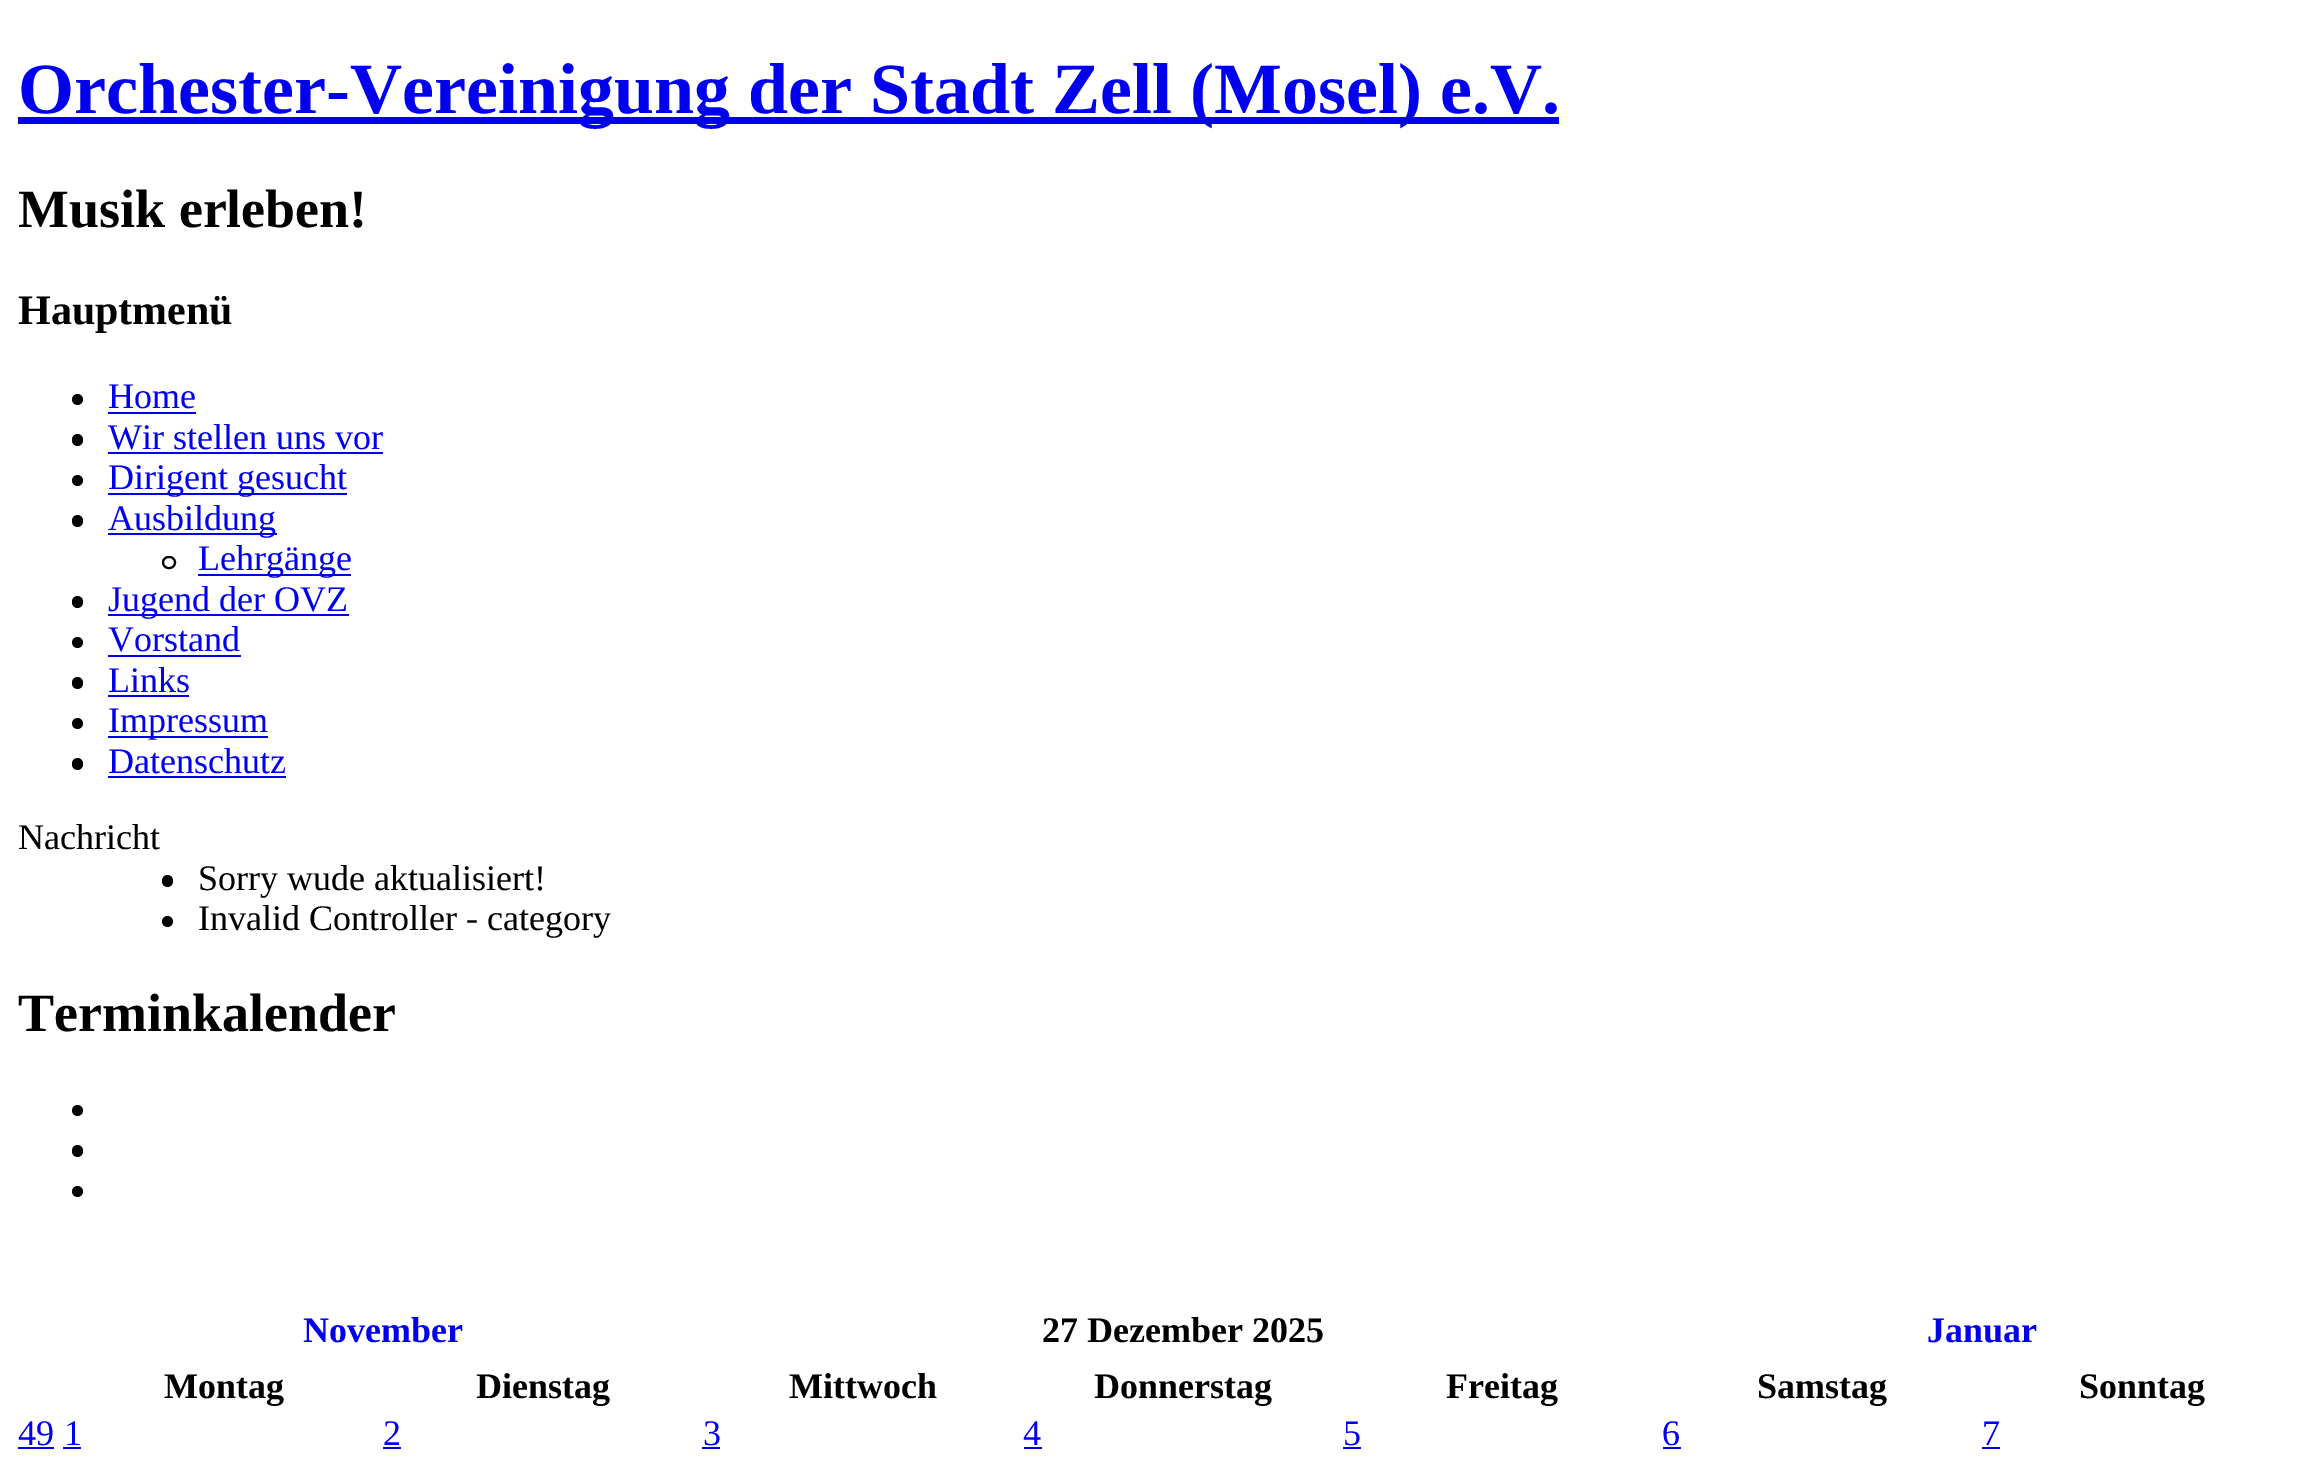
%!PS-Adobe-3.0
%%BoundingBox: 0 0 2319 1458
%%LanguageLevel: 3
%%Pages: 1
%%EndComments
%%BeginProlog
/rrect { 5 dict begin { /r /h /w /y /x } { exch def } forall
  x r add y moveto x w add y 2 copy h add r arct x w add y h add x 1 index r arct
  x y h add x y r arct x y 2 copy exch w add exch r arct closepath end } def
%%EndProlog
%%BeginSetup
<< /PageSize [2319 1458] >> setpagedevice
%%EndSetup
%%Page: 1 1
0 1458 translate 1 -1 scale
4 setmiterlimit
1 setgray
0 0 2319 1458 rectfill
0 0 0.933 setrgbcolor
18 117 1541 7 rectfill
0 setgray
newpath 77.5 399.5 5.5 0 360 arc closepath fill
0 0 0.933 setrgbcolor
108 412 88 2 rectfill
0 setgray
72 434 11 12 5.5 rrect fill
0 0 0.933 setrgbcolor
108 452 275 2 rectfill
0 setgray
newpath 77.5 480.5 5.5 0 360 arc closepath fill
0 0 0.933 setrgbcolor
108 493 239 2 rectfill
0 setgray
72 515 11 12 5.5 rrect fill
0 0 0.933 setrgbcolor
108 533 169 2 rectfill
0 setgray
2 setlinewidth
163 557 12 11 5.5 rrect stroke
0 0 0.933 setrgbcolor
198 574 153 2 rectfill
0 setgray
72 596 11 12 5.5 rrect fill
0 0 0.933 setrgbcolor
108 614 241 2 rectfill
0 setgray
newpath 77.5 642.5 5.5 0 360 arc closepath fill
0 0 0.933 setrgbcolor
108 655 133 2 rectfill
0 setgray
72 677 11 12 5.5 rrect fill
0 0 0.933 setrgbcolor
108 695 81 2 rectfill
0 setgray
newpath 77.5 723.5 5.5 0 360 arc closepath fill
0 0 0.933 setrgbcolor
108 736 160 2 rectfill
0 setgray
72 758 11 12 5.5 rrect fill
0 0 0.933 setrgbcolor
108 776 178 2 rectfill
0 setgray
162 875 11 12 5.5 rrect fill
newpath 167.5 921.5 5.5 0 360 arc closepath fill
newpath 77.5 1110.5 5.5 0 360 arc closepath fill
72 1145 11 12 5.5 rrect fill
newpath 77.5 1191.5 5.5 0 360 arc closepath fill
0 0 0.933 setrgbcolor
18 1447 36 2 rectfill
63 1447 18 2 rectfill
383 1447 18 2 rectfill
702 1447 18 2 rectfill
1024 1447 18 2 rectfill
1343 1447 18 2 rectfill
1663 1447 18 2 rectfill
1982 1447 18 2 rectfill
/LiberationSerif-Bold [72 0 0 -72 0 0] selectfont
18 113 moveto (Orchester-Vereinigung der Stadt Zell \(Mosel\) e.V.) show
/LiberationSerif-Bold [54 0 0 -54 0 0] selectfont
0 setgray
18 227 moveto (Musik erleben!) show
/LiberationSerif-Bold [42 0 0 -42 0 0] selectfont
18 324 moveto (Hauptmenü) show
/LiberationSerif-Regular [36 0 0 -36 0 0] selectfont
0 0 0.933 setrgbcolor
108 408 moveto (Home) show
108 449 moveto (Wir stellen uns vor) show
108 489 moveto (Dirigent gesucht) show
108 530 moveto (Ausbildung) show
198 570 moveto (Lehrgänge) show
108 611 moveto (Jugend der OVZ) show
108 651 moveto (Vorstand) show
108 692 moveto (Links) show
108 732 moveto (Impressum) show
108 773 moveto (Datenschutz) show
0 setgray
18 849 moveto (Nachricht) show
198 890 moveto (Sorry wude aktualisiert!) show
198 930 moveto (Invalid Controller - category) show
/LiberationSerif-Bold [54 0 0 -54 0 0] selectfont
18 1031 moveto (Terminkalender) show
/LiberationSerif-Bold [36 0 0 -36 0 0] selectfont
0 0 0.933 setrgbcolor
303 1342 moveto (November) show
0 setgray
1042 1342 moveto (27 Dezember 2025) show
0 0 0.933 setrgbcolor
1927 1342 moveto (Januar) show
0 setgray
164 1398 moveto (Montag) show
476 1398 moveto (Dienstag) show
789 1398 moveto (Mittwoch) show
1094 1398 moveto (Donnerstag) show
1446 1398 moveto (Freitag) show
1757 1398 moveto (Samstag) show
2079 1398 moveto (Sonntag) show
/LiberationSerif-Regular [36 0 0 -36 0 0] selectfont
0 0 0.933 setrgbcolor
18 1445 moveto (49) show
64 1445 moveto (1) show
383 1445 moveto (2) show
703 1445 moveto (3) show
1023 1445 moveto (4) show
1343 1445 moveto (5) show
1662 1445 moveto (6) show
1982 1445 moveto (7) show
showpage
%%EOF
